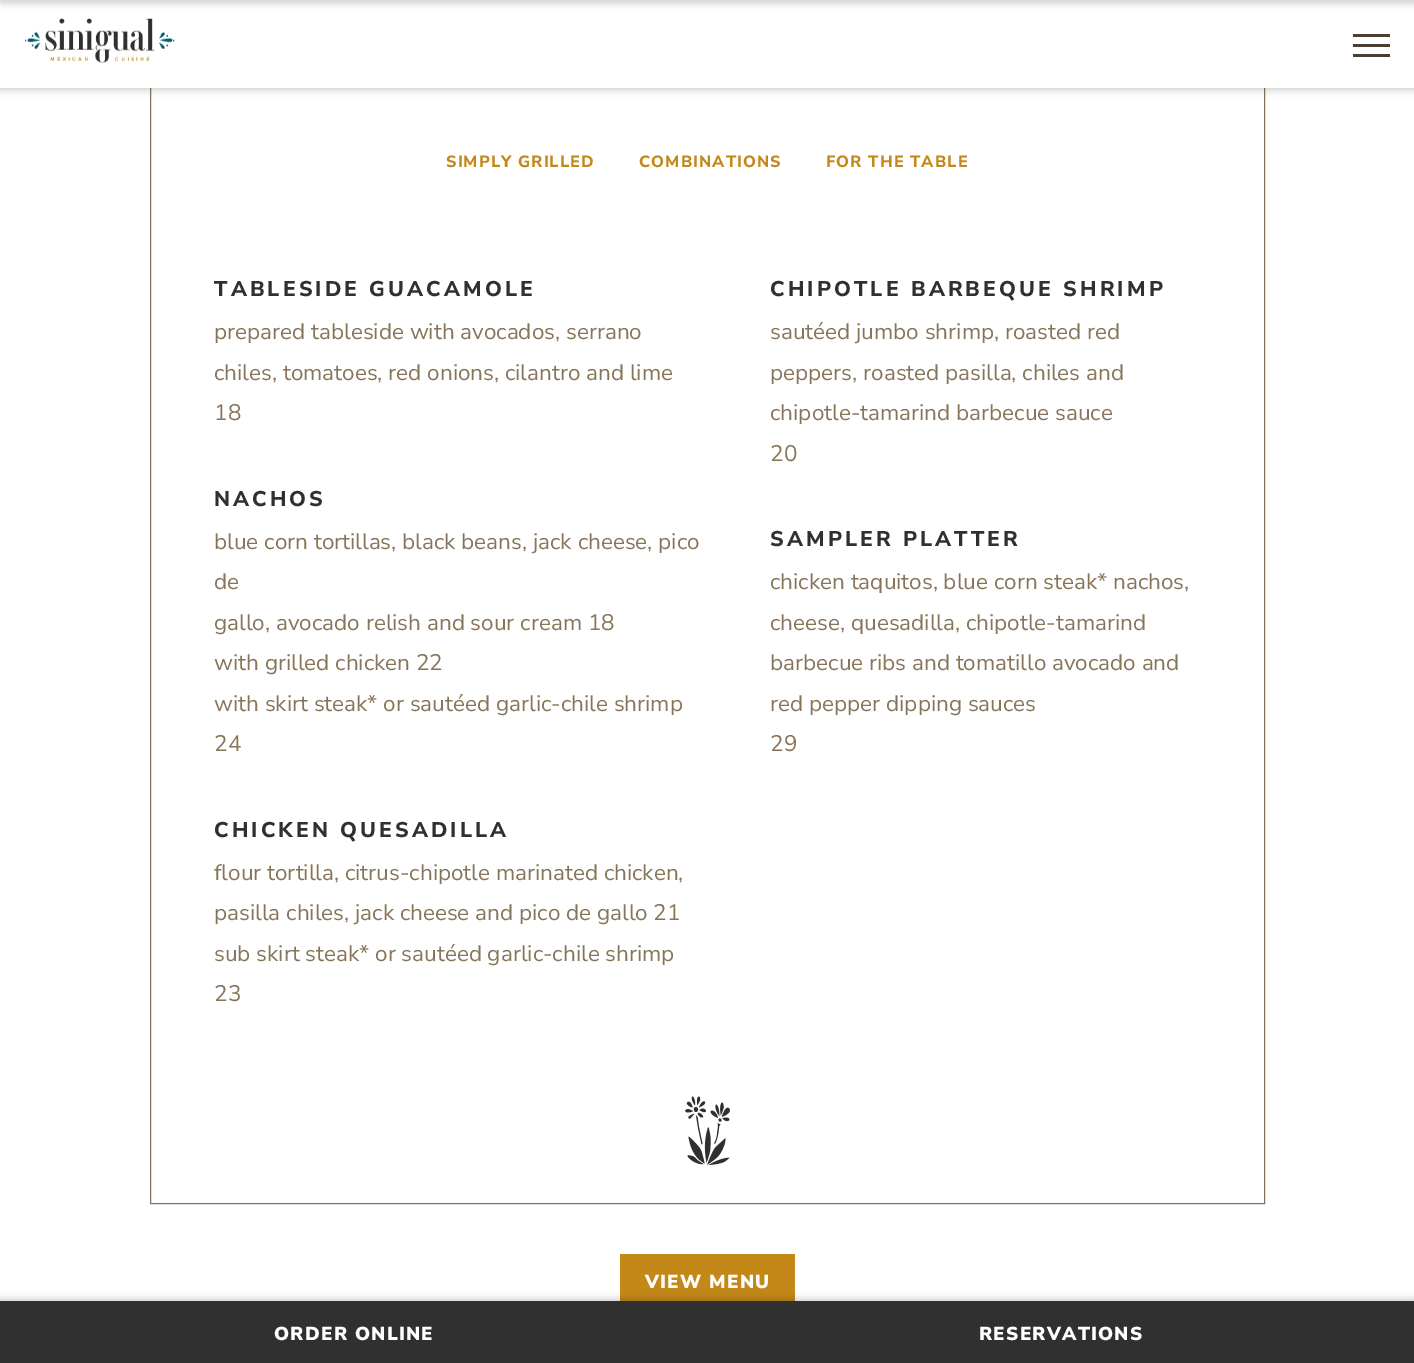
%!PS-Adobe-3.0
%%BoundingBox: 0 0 1414 1363
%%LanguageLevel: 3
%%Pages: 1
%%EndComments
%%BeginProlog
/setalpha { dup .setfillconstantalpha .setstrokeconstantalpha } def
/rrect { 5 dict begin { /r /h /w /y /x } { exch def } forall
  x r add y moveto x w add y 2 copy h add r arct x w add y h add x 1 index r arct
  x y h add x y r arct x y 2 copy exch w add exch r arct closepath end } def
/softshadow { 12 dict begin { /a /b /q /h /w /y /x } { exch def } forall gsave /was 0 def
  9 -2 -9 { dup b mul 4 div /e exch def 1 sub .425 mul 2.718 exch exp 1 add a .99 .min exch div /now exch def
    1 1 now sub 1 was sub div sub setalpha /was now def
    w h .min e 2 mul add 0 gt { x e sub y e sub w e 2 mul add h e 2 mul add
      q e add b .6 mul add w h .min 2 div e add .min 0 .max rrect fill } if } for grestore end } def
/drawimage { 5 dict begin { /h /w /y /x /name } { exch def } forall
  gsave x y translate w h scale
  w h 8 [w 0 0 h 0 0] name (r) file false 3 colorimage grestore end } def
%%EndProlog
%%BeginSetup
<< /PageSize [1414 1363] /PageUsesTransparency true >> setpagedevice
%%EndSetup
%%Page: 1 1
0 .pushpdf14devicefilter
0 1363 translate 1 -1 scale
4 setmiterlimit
1 setgray
0 0 1414 1363 rectfill
0.529 0.459 0.353 setrgbcolor
150.5 -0.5 1114 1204 rectstroke
0 setgray
0 3 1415 87 0 4 0.2 softshadow
1 setgray
0 0 1414 88 rectfill
(images/1.raw) 25 18 150 45 drawimage
0.298 0.243 0.192 setrgbcolor
1353 34 37 3 rectfill
1353 44 37 3 rectfill
1353 54 37 3 rectfill
0 setgray
0 -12 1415 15 0 4 0.2 softshadow
(images/2.raw) 685 1096 45 69 drawimage
0.769 0.533 0.094 setrgbcolor
620 1254 175 47 rectfill
0 setgray
0 1299 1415 62 0 4 0.2 softshadow
0.192 0.188 0.192 setrgbcolor
0 1301 1414 62 rectfill
/NunitoSans-ExtraBold [16.25 0 0 -16.25 0 0] selectfont
0.769 0.533 0.094 setrgbcolor
446 167 moveto 1.1 0 (SIMPLY GRILLED) ashow
639 167 moveto 1.1 0 (COMBINATIONS) ashow
826 167 moveto 1.1 0 (FOR THE TABLE) ashow
/NunitoSans-ExtraBold [21.25 0 0 -21.25 0 0] selectfont
0.192 0.188 0.192 setrgbcolor
214 296 moveto 3.1 0 (TABLESIDE GUACAMOLE) ashow
/NunitoSans-Regular [22.5 0 0 -22.5 0 0] selectfont
0.529 0.459 0.353 setrgbcolor
214 339 moveto (prepared tableside with avocados, serrano) show
214 380 moveto (chiles, tomatoes, red onions, cilantro and lime) show
214 420 moveto (18) show
/NunitoSans-ExtraBold [21.25 0 0 -21.25 0 0] selectfont
0.192 0.188 0.192 setrgbcolor
214 506 moveto 3.1 0 (NACHOS) ashow
/NunitoSans-Regular [22.5 0 0 -22.5 0 0] selectfont
0.529 0.459 0.353 setrgbcolor
214 549 moveto (blue corn tortillas, black beans, jack cheese, pico) show
214 589 moveto (de) show
214 630 moveto (gallo, avocado relish and sour cream 18) show
214 670 moveto (with grilled chicken 22) show
214 711 moveto (with skirt steak* or sautéed garlic-chile shrimp) show
214 751 moveto (24) show
/NunitoSans-ExtraBold [21.25 0 0 -21.25 0 0] selectfont
0.192 0.188 0.192 setrgbcolor
214 837 moveto 3.1 0 (CHICKEN QUESADILLA) ashow
/NunitoSans-Regular [22.5 0 0 -22.5 0 0] selectfont
0.529 0.459 0.353 setrgbcolor
214 880 moveto (flour tortilla, citrus-chipotle marinated chicken,) show
214 920 moveto (pasilla chiles, jack cheese and pico de gallo 21) show
214 961 moveto (sub skirt steak* or sautéed garlic-chile shrimp) show
214 1001 moveto (23) show
/NunitoSans-ExtraBold [21.25 0 0 -21.25 0 0] selectfont
0.192 0.188 0.192 setrgbcolor
770 296 moveto 3.1 0 (CHIPOTLE BARBEQUE SHRIMP) ashow
/NunitoSans-Regular [22.5 0 0 -22.5 0 0] selectfont
0.529 0.459 0.353 setrgbcolor
770 339 moveto (sautéed jumbo shrimp, roasted red) show
770 380 moveto (peppers, roasted pasilla, chiles and) show
770 420 moveto (chipotle-tamarind barbecue sauce) show
770 461 moveto (20) show
/NunitoSans-ExtraBold [21.25 0 0 -21.25 0 0] selectfont
0.192 0.188 0.192 setrgbcolor
770 546 moveto 3.1 0 (SAMPLER PLATTER) ashow
/NunitoSans-Regular [22.5 0 0 -22.5 0 0] selectfont
0.529 0.459 0.353 setrgbcolor
770 589 moveto (chicken taquitos, blue corn steak* nachos,) show
770 630 moveto (cheese, quesadilla, chipotle-tamarind) show
770 670 moveto (barbecue ribs and tomatillo avocado and) show
770 711 moveto (red pepper dipping sauces) show
770 751 moveto (29) show
/NunitoSans-Black [18.75 0 0 -18.75 0 0] selectfont
1 setgray
645 1288 moveto 1.25 0 (VIEW MENU) ashow
274 1340 moveto 1.25 0 (ORDER ONLINE) ashow
979 1340 moveto 1.25 0 (RESERVATIONS) ashow
.poppdf14devicefilter showpage
%%EOF
